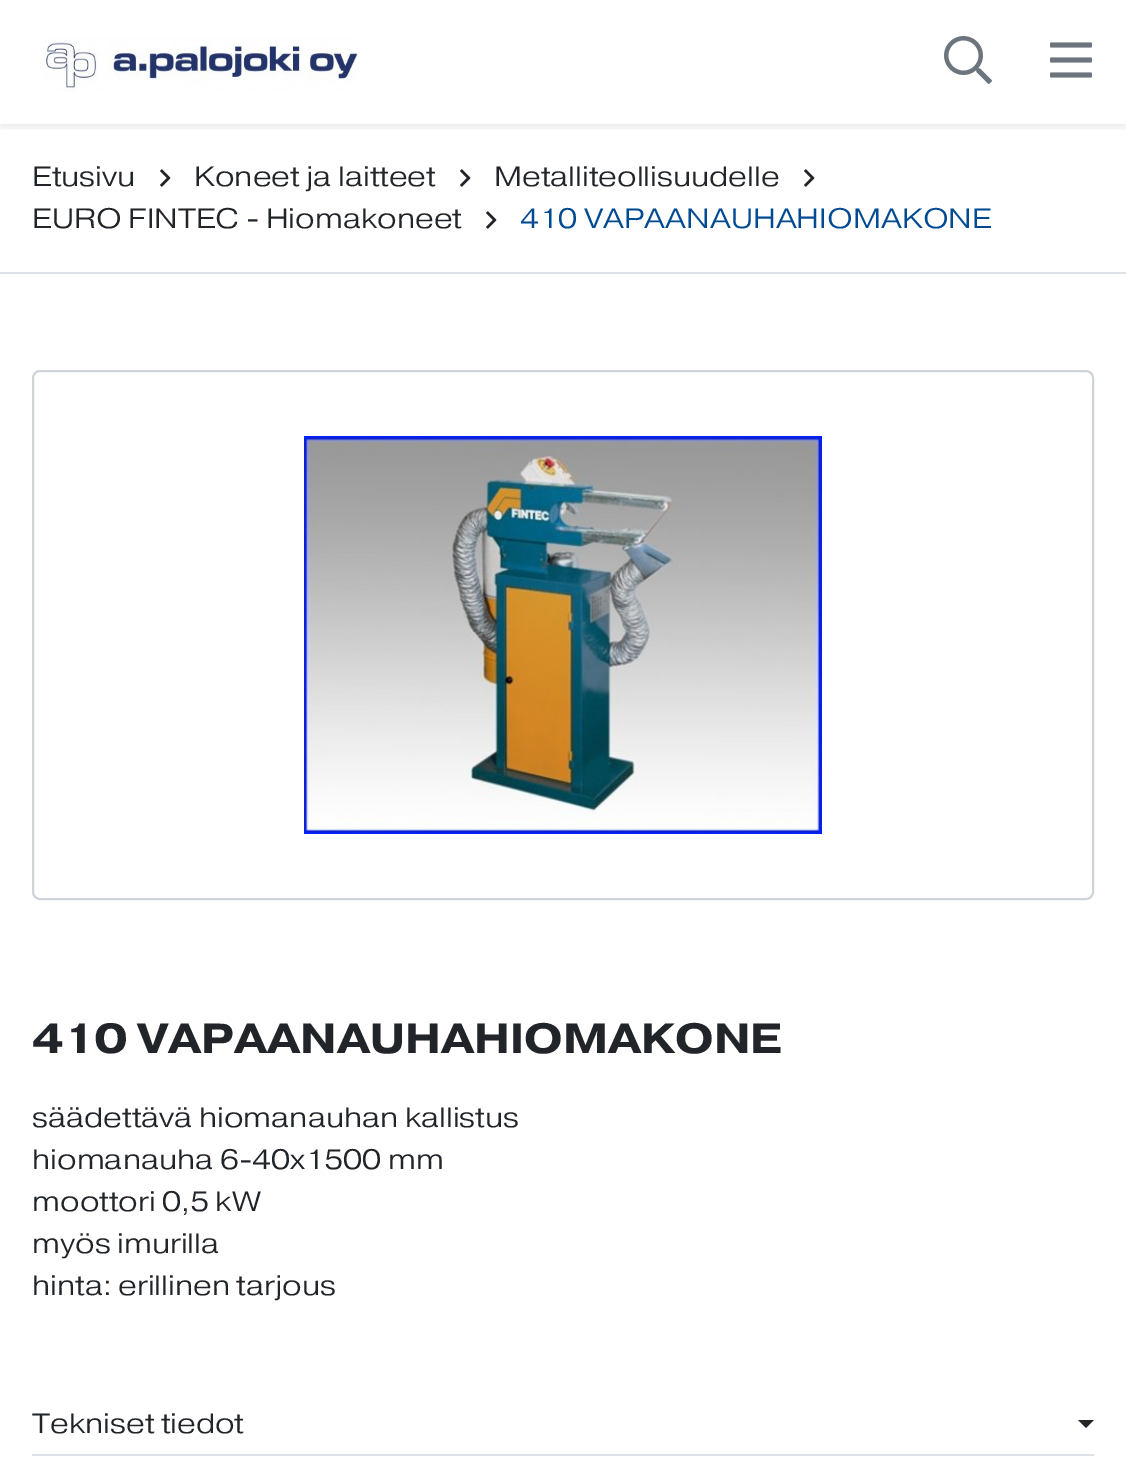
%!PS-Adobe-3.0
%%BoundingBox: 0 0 1126 1461
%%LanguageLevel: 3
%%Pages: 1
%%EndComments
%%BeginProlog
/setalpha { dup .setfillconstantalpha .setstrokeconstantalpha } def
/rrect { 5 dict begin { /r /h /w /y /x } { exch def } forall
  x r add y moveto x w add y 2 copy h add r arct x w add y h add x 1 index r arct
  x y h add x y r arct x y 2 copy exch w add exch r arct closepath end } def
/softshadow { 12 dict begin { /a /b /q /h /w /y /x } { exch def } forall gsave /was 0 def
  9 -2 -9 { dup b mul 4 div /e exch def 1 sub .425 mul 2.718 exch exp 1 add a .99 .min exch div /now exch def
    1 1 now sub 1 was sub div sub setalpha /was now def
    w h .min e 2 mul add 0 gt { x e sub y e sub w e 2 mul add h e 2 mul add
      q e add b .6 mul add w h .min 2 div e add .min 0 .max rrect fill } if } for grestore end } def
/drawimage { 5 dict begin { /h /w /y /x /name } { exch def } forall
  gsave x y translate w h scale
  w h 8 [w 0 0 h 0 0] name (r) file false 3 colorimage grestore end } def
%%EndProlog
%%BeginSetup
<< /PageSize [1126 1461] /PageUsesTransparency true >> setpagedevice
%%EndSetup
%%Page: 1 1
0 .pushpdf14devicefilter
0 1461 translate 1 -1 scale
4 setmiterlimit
1 setgray
0 0 1126 1461 rectfill
gsave
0 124 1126 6 rectclip
0 setgray
0 4 1126 124 0 4 0.07 softshadow
grestore
(images/1.raw) 43 37 316 55 drawimage
(images/2.raw) 944 36 48 48 drawimage
(images/3.raw) 1050 42 42 36 drawimage
0.871 0.886 0.902 setrgbcolor
0 272 1126 2 rectfill
(images/4.raw) 160 169 11 18 drawimage
(images/4.raw) 460 169 11 18 drawimage
(images/4.raw) 804 169 11 18 drawimage
(images/4.raw) 486 211 11 18 drawimage
0.808 0.831 0.855 setrgbcolor
2 setlinewidth
33 371 1060 528 7 rrect stroke
(images/5.raw) 304 436 518 398 drawimage
0.871 0.886 0.902 setrgbcolor
32 1454 1062 2 rectfill
0.129 0.145 0.161 setrgbcolor
newpath 1078 1420 moveto 1094 1420 lineto 1086 1428 lineto closepath fill
/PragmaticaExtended-Light [28 0 0 -28 0 0] selectfont
32 186 moveto (Etusivu) show
194 186 moveto (Koneet ja laitteet) show
494 186 moveto (Metalliteollisuudelle) show
32 228 moveto (EURO FINTEC - Hiomakoneet) show
0 0.29 0.573 setrgbcolor
520 228 moveto (410 VAPAANAUHAHIOMAKONE) show
/PragmaticaExtended-Bold [42 0 0 -42 0 0] selectfont
0.129 0.145 0.161 setrgbcolor
32 1053 moveto (410 VAPAANAUHAHIOMAKONE) show
/PragmaticaExtended-Light [28 0 0 -28 0 0] selectfont
32 1127 moveto (säädettävä hiomanauhan kallistus) show
32 1169 moveto (hiomanauha 6-40x1500 mm) show
32 1211 moveto (moottori 0,5 kW) show
32 1253 moveto (myös imurilla) show
32 1295 moveto (hinta: erillinen tarjous) show
32 1433 moveto (Tekniset tiedot) show
.poppdf14devicefilter showpage
%%EOF
